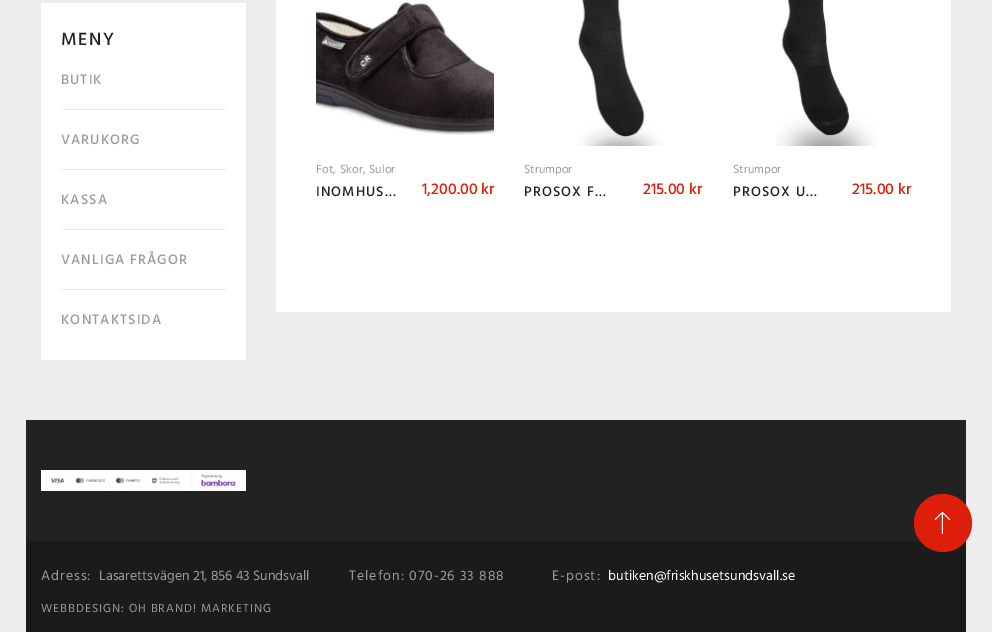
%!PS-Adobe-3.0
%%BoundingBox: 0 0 992 632
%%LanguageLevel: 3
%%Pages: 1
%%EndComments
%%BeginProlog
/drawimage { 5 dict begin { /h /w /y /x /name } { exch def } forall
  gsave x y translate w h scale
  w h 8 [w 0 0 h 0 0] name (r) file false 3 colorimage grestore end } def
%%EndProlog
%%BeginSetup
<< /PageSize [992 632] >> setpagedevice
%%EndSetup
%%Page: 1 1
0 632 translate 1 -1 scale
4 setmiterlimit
0.929 setgray
0 0 992 632 rectfill
1 setgray
41 3 205 357 rectfill
0.91 setgray
61 109 165 1 rectfill
61 169 165 1 rectfill
61 229 165 1 rectfill
61 289 165 1 rectfill
1 setgray
276 0 675 312 rectfill
(images/1.raw) 316 1 178 134 drawimage
(images/2.raw) 577 0 86 146 drawimage
(images/3.raw) 776 0 100 146 drawimage
0.106 setgray
26 541 940 91 rectfill
0.133 setgray
26 420 940 121 rectfill
(images/4.raw) 41 470 205 21 drawimage
0.867 0.118 0.031 setrgbcolor
newpath 943 523 29 0 360 arc closepath fill
(images/5.raw) 934 511 17 23 drawimage
/HindSiliguri-Medium [18 0 0 -18 0 0] selectfont
0.133 setgray
61 45 moveto 1.5 0 (MENY) ashow
/HindSiliguri-Medium [14 0 0 -14 0 0] selectfont
0.608 setgray
61 84 moveto 1.1 0 (BUTIK) ashow
61 144 moveto 1.1 0 (VARUKORG) ashow
61 204 moveto 1.1 0 (KASSA) ashow
61 264 moveto 1.1 0 (VANLIGA FRÅGOR) ashow
61 324 moveto 1.1 0 (KONTAKTSIDA) ashow
/HindSiliguri-Regular [12 0 0 -12 0 0] selectfont
316 173 moveto (Fot,) show
340 173 moveto (Skor,) show
369 173 moveto (Sulor) show
/HindSiliguri-Medium [14 0 0 -14 0 0] selectfont
0.133 setgray
316 196 moveto 1.1 0 (INOMHUS…) ashow
/HindSiliguri-Medium [16 0 0 -16 0 0] selectfont
0.867 0.118 0.031 setrgbcolor
422 194 moveto (1,200.00 kr) show
/HindSiliguri-Regular [12 0 0 -12 0 0] selectfont
0.608 setgray
524 173 moveto (Strumpor) show
/HindSiliguri-Medium [14 0 0 -14 0 0] selectfont
0.133 setgray
524 196 moveto 1.1 0 (PROSOX F…) ashow
/HindSiliguri-Medium [16 0 0 -16 0 0] selectfont
0.867 0.118 0.031 setrgbcolor
643 194 moveto (215.00 kr) show
/HindSiliguri-Regular [12 0 0 -12 0 0] selectfont
0.608 setgray
733 173 moveto (Strumpor) show
/HindSiliguri-Medium [14 0 0 -14 0 0] selectfont
0.133 setgray
733 196 moveto 1.1 0 (PROSOX U…) ashow
/HindSiliguri-Medium [16 0 0 -16 0 0] selectfont
0.867 0.118 0.031 setrgbcolor
852 194 moveto (215.00 kr) show
/HindSiliguri-Regular [14 0 0 -14 0 0] selectfont
0.608 setgray
41 580 moveto 1 0 (Adress:) ashow
99 580 moveto (Lasarettsvägen 21, 856 43 Sundsvall) show
349 580 moveto 1 0 (Telefon: 070-26 33 888) ashow
552 580 moveto 1 0 (E-post:) ashow
1 setgray
608 580 moveto (butiken@friskhusetsundsvall.se) show
/HindSiliguri-Regular [12 0 0 -12 0 0] selectfont
0.608 setgray
41 612 moveto 1 0 (WEBBDESIGN: OH BRAND! MARKETING) ashow
showpage
%%EOF
